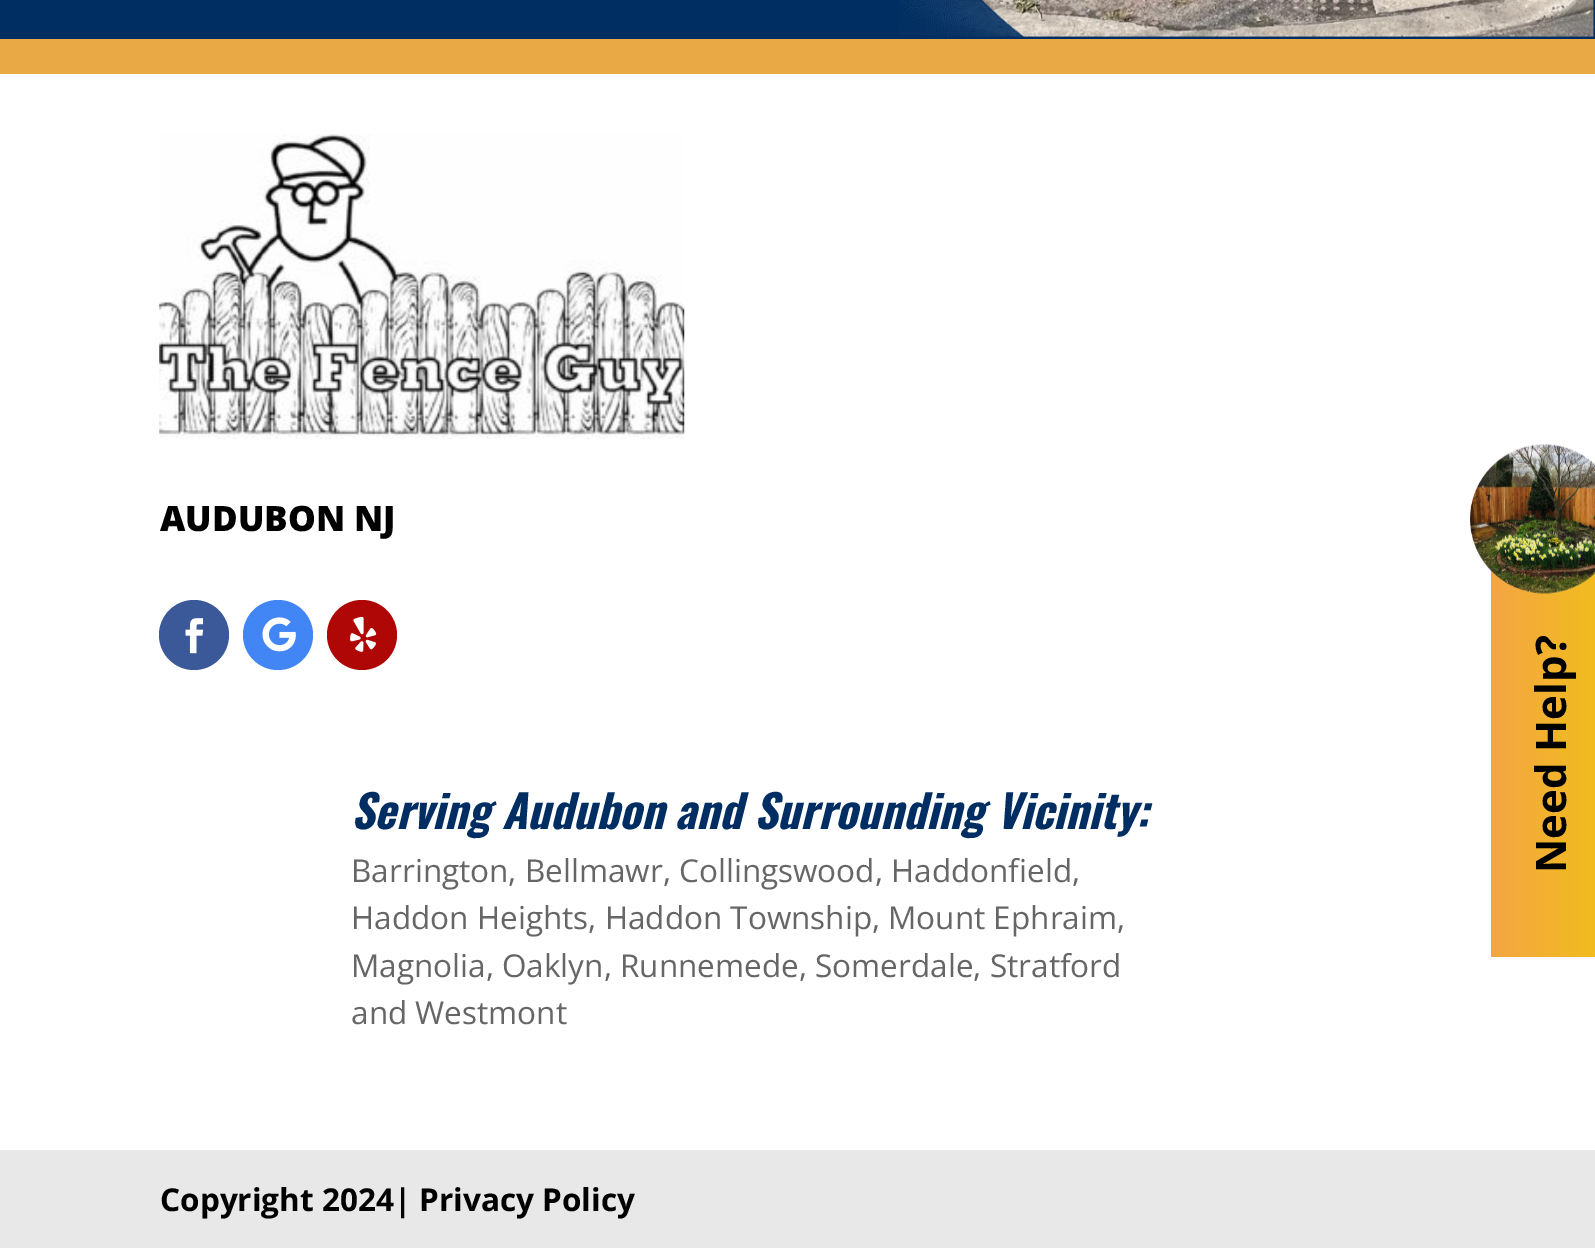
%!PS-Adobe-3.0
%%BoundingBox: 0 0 1595 1248
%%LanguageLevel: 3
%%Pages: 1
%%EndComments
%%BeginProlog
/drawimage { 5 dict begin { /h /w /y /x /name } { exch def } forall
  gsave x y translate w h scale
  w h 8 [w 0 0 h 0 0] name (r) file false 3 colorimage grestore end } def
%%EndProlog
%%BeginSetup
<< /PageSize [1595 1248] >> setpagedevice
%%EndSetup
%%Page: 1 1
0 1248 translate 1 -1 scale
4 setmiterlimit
1 setgray
0 0 1595 1248 rectfill
0 0.18 0.384 setrgbcolor
0 0 1595 39 rectfill
(images/1.raw) 899 0 695 37 drawimage
0.914 0.667 0.275 setrgbcolor
0 39 1595 35 rectfill
(images/2.raw) 159 134 526 305 drawimage
0.231 0.349 0.596 setrgbcolor
newpath 194 635 35 0 360 arc closepath fill
(images/3.raw) 185 618 19 36 drawimage
0.259 0.522 0.957 setrgbcolor
newpath 278 635 35 0 360 arc closepath fill
(images/4.raw) 262 617 34 35 drawimage
0.686 0.024 0.024 setrgbcolor
newpath 362 635 35 0 360 arc closepath fill
(images/5.raw) 350 616 27 36 drawimage
gsave newpath 1491 569 moveto 1595 569 lineto 1595 957 lineto 1491 957 lineto closepath clip newpath
<< /ShadingType 2 /ColorSpace /DeviceRGB /Coords [1491 729 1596 729] /Extend [true true] /Function << /FunctionType 2 /Domain [0 1] /C0 [0.957 0.647 0.267] /C1 [0.945 0.737 0.118] /N 1 >> >> shfill grestore
(images/6.raw) 1470 443 125 151 drawimage
0.91 setgray
0 1150 1595 98 rectfill
/OpenSans-ExtraBold [35 0 0 -35 0 0] selectfont
0 setgray
160 531 moveto (AUDUBON NJ) show
/Oswald-BoldItalic [45.5 0 0 -45.5 0 0] selectfont
0 0.18 0.384 setrgbcolor
351 829 moveto (Serving Audubon and Surrounding Vicinity:) show
/OpenSans-Regular [31.5 0 0 -31.5 0 0] selectfont
0.4 setgray
351 882 moveto (Barrington, Bellmawr, Collingswood, Haddonfield,) show
351 929 moveto (Haddon Heights, Haddon Township, Mount Ephraim,) show
351 977 moveto (Magnolia, Oaklyn, Runnemede, Somerdale, Stratford) show
351 1024 moveto (and Westmont) show
/OpenSans-Bold [42 0 0 -42 0 0] selectfont
0 setgray
gsave 1566 873 translate -90 rotate 0 0 moveto (Need Help?) show grestore
/OpenSans-Bold [31.5 0 0 -31.5 0 0] selectfont
160 1211 moveto (Copyright 2024| Privacy Policy) show
showpage
%%EOF
